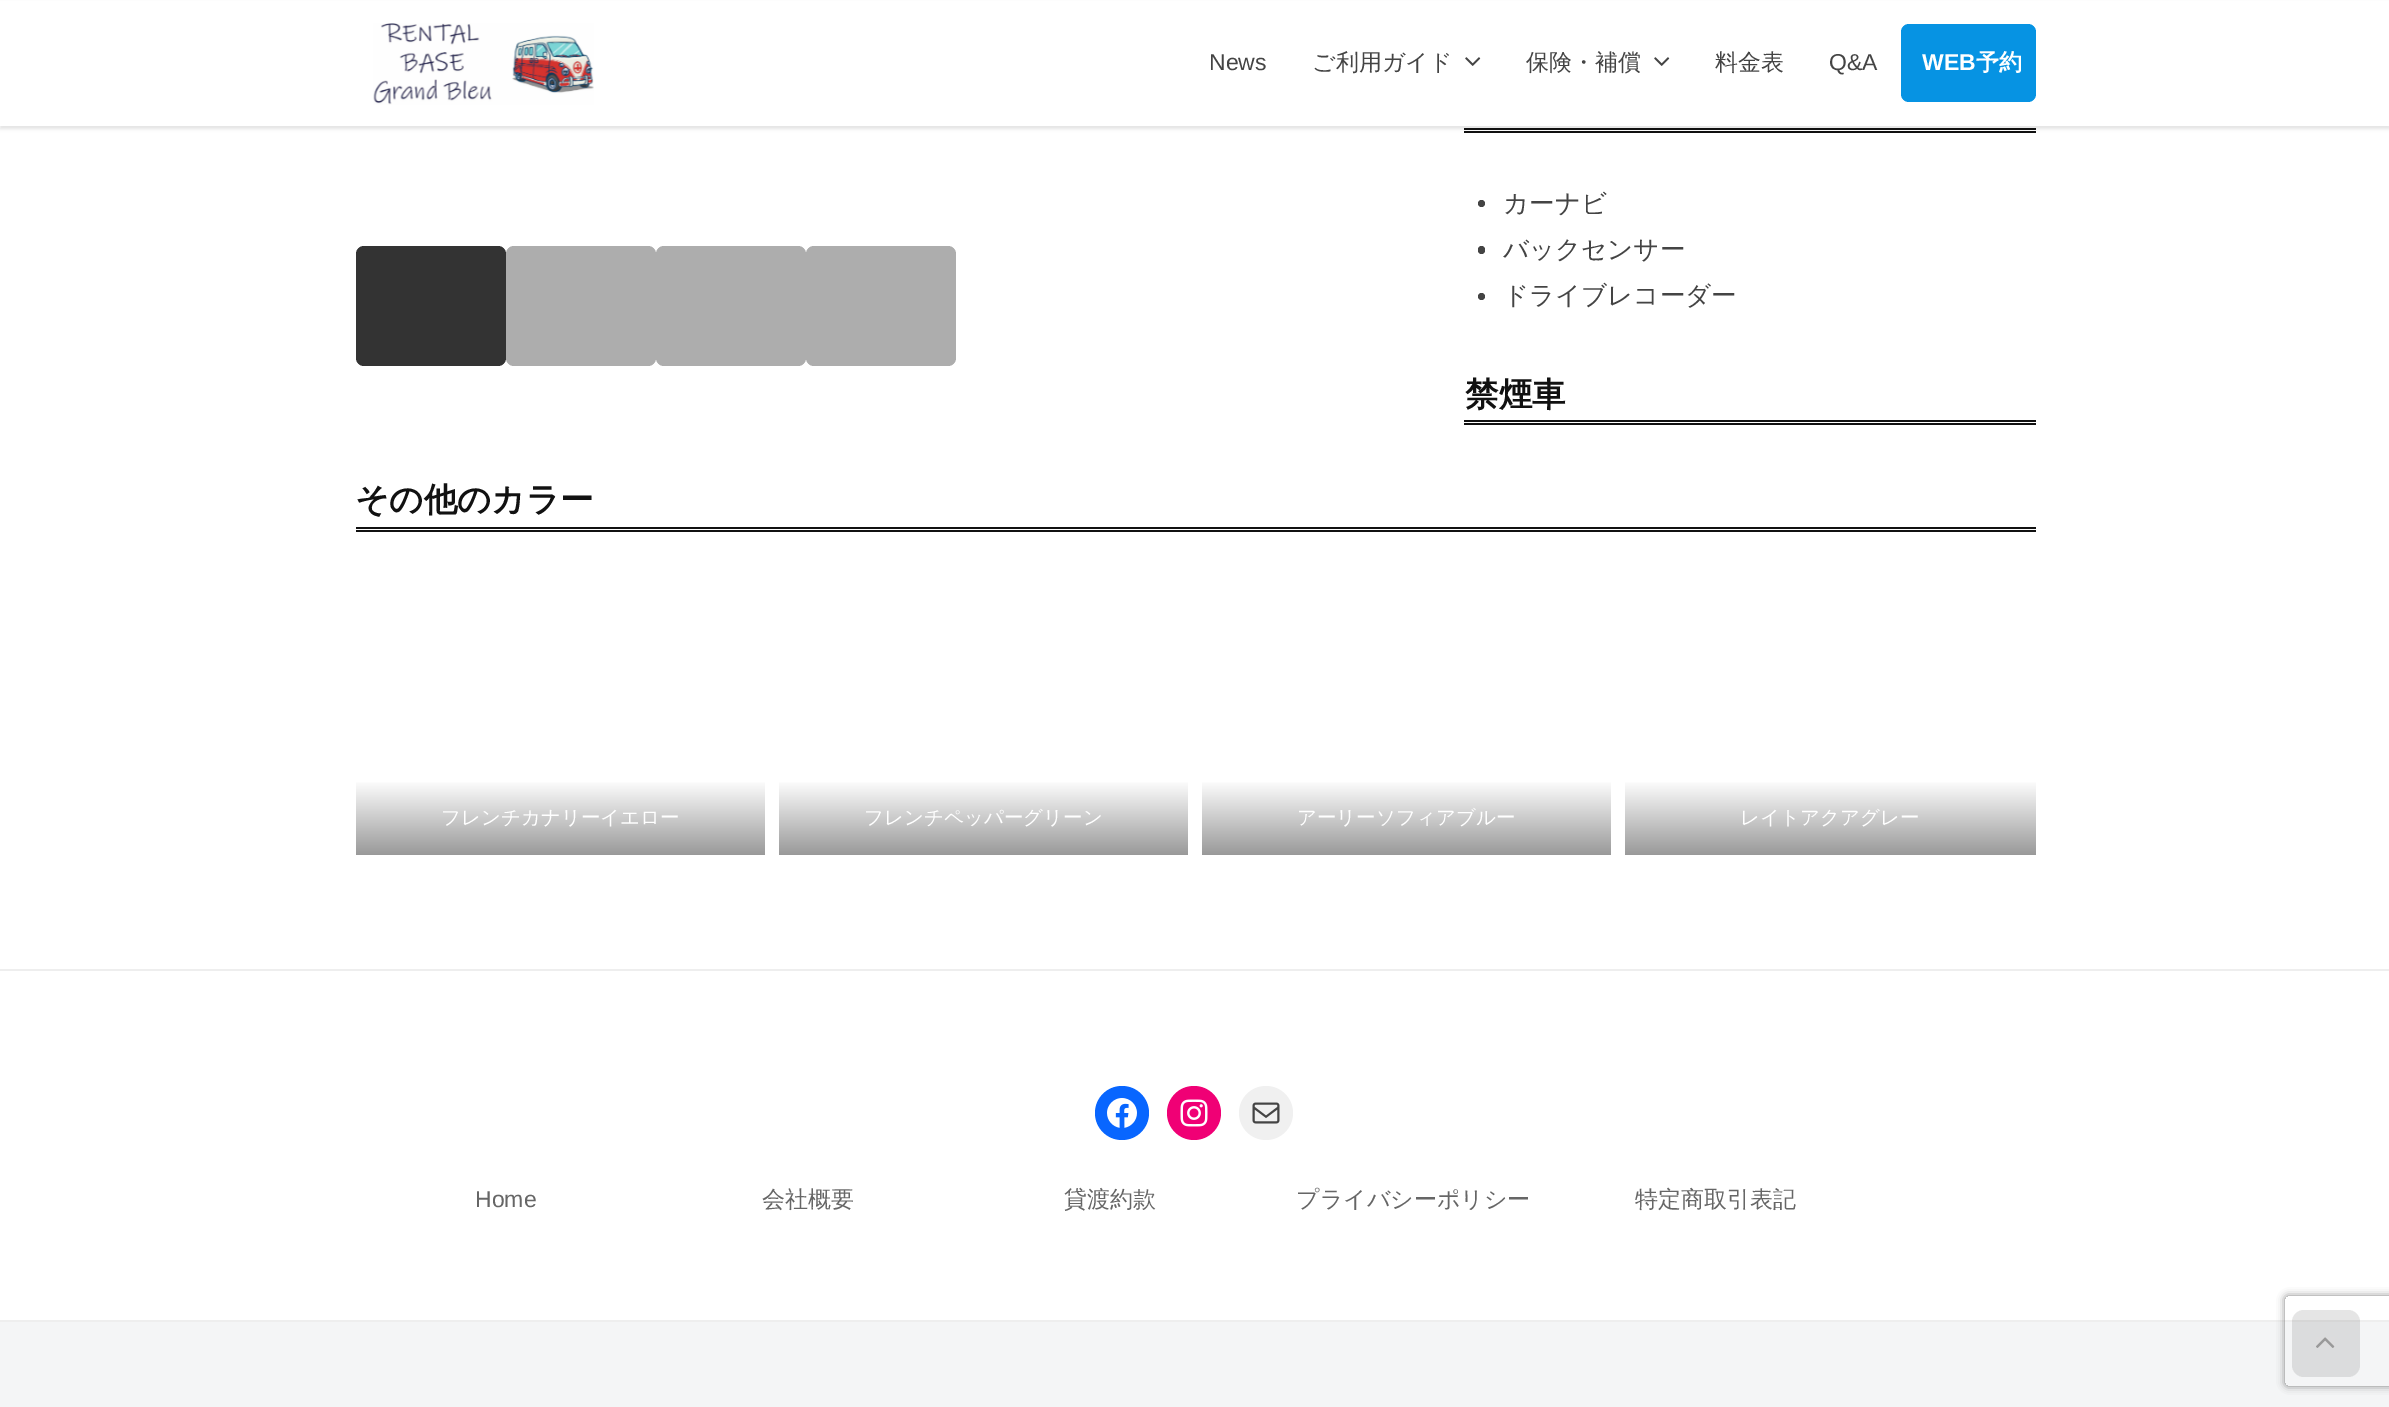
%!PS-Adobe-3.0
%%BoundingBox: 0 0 2389 1407
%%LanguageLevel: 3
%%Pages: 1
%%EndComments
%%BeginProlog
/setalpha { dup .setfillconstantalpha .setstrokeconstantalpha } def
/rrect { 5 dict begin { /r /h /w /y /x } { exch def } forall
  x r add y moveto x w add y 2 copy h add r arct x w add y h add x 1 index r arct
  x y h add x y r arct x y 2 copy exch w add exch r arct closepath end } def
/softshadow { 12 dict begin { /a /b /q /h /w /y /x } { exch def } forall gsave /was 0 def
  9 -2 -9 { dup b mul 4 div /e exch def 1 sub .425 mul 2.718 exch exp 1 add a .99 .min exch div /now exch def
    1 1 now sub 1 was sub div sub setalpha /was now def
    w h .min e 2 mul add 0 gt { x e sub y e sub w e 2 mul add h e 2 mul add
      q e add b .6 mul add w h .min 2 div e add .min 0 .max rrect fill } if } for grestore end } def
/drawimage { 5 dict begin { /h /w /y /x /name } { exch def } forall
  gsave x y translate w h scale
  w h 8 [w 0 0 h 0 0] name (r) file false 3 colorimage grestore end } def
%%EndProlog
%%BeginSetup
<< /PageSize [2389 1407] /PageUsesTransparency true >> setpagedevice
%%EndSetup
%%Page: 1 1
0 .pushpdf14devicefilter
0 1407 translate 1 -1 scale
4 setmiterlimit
1 setgray
0 0 2389 1407 rectfill
0.067 setgray
1464 128 572 2 rectfill
1464 131 572 2 rectfill
0 setgray
0 3 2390 126 0 1.5 0.1 softshadow
1 setgray
0 1 2389 125 rectfill
(images/1.raw) 373 23 221 82 drawimage
(images/2.raw) 1465 57 16 9 drawimage
(images/2.raw) 1654 57 16 9 drawimage
0.024 0.576 0.89 setrgbcolor
1901 24 135 78 8 rrect fill
0.2 setgray
356 246 150 120 8 rrect fill
0.678 setgray
506 246 150 120 8 rrect fill
656 246 150 120 8 rrect fill
806 246 150 120 8 rrect fill
0.267 setgray
newpath 1481.5 203.5 3.5 0 360 arc closepath fill
1478 246 7 8 3.5 rrect fill
newpath 1481.5 296.5 3.5 0 360 arc closepath fill
0.067 setgray
1464 420 572 2 rectfill
1464 423 572 2 rectfill
356 527 1680 2 rectfill
356 530 1680 2 rectfill
gsave newpath 356 782 moveto 765 782 lineto 765 855 lineto 356 855 lineto closepath clip newpath
<< /ShadingType 2 /ColorSpace /DeviceRGB /Coords [560 855 560 780] /Extend [true true] /Function << /FunctionType 2 /Domain [0 1] /C0 [0.6 0.6 0.6] /C1 [1 1 1] /N 1 >> >> shfill grestore
gsave newpath 779 782 moveto 1188 782 lineto 1188 855 lineto 779 855 lineto closepath clip newpath
<< /ShadingType 2 /ColorSpace /DeviceRGB /Coords [983 855 983 780] /Extend [true true] /Function << /FunctionType 2 /Domain [0 1] /C0 [0.6 0.6 0.6] /C1 [1 1 1] /N 1 >> >> shfill grestore
gsave newpath 1202 782 moveto 1611 782 lineto 1611 855 lineto 1202 855 lineto closepath clip newpath
<< /ShadingType 2 /ColorSpace /DeviceRGB /Coords [1406 855 1406 780] /Extend [true true] /Function << /FunctionType 2 /Domain [0 1] /C0 [0.6 0.6 0.6] /C1 [1 1 1] /N 1 >> >> shfill grestore
gsave newpath 1625 782 moveto 2036 782 lineto 2036 855 lineto 1625 855 lineto closepath clip newpath
<< /ShadingType 2 /ColorSpace /DeviceRGB /Coords [1830 855 1830 780] /Extend [true true] /Function << /FunctionType 2 /Domain [0 1] /C0 [0.6 0.6 0.6] /C1 [1 1 1] /N 1 >> >> shfill grestore
0.933 setgray
0 969 2389 2 rectfill
0.031 0.4 1 setrgbcolor
newpath 1122 1113 27 0 360 arc closepath fill
(images/3.raw) 1107 1098 30 30 drawimage
0.941 0 0.459 setrgbcolor
newpath 1194 1113 27 0 360 arc closepath fill
(images/4.raw) 1180 1099 28 28 drawimage
0.941 setgray
newpath 1266 1113 27 0 360 arc closepath fill
(images/5.raw) 1252 1102 28 22 drawimage
0.957 0.961 0.965 setrgbcolor
0 1322 2389 85 rectfill
0.933 setgray
0 1320 2389 2 rectfill
gsave
newpath 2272 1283 moveto 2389 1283 lineto 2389 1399 lineto 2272 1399 lineto closepath 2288 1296 moveto 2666 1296 lineto 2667.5 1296 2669 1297.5 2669 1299 curveto 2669 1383 lineto 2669 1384.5 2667.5 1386 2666 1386 curveto 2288 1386 lineto 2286.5 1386 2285 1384.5 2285 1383 curveto 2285 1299 lineto 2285 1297.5 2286.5 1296 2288 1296 curveto closepath eoclip newpath
0.502 setgray
2285 1296 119 90 3 4 1 softshadow
grestore
0.1 setalpha
0 setgray
2292 1310 68 67 12 rrect fill
1 setalpha
(images/6.raw) 2316 1337 19 11 drawimage
/LiberationSans-Regular [23 0 0 -23 0 0] selectfont
0.267 setgray
1209 70 moveto (News) show
/WenQuanYiZenHei-Medium [23 0 0 -23 0 0] selectfont
1312 70 moveto (ご利用ガイド) show
1526 70 moveto (保険・補償) show
1715 70 moveto (料金表) show
/LiberationSans-Regular [23 0 0 -23 0 0] selectfont
1829 70 moveto (Q&A) show
/LiberationSans-Bold [23 0 0 -23 0 0] selectfont
1 setgray
1922 70 moveto (WEB) show
/WenQuanYiZenHei-Bold [23 0 0 -23 0 0] selectfont
1976 70 moveto (予約) show
/WenQuanYiZenHei-Medium [25.5 0 0 -25.5 0 0] selectfont
0.267 setgray
1503 212 moveto (カーナビ) show
1503 258 moveto (バックセンサー) show
1503 304 moveto (ドライブレコーダー) show
/WenQuanYiZenHei-Bold [33.5 0 0 -33.5 0 0] selectfont
0.067 setgray
1465 406 moveto (禁煙車) show
355 511 moveto (その他のカラー) show
/WenQuanYiZenHei-Medium [19.5 0 0 -19.5 0 0] selectfont
1 setgray
441 824 moveto (フレンチカナリーイエロー) show
864 824 moveto (フレンチペッパーグリーン) show
1297 824 moveto (アーリーソフィアブルー) show
1740 824 moveto (レイトアクアグレー) show
/LiberationSans-Regular [23 0 0 -23 0 0] selectfont
0.4 setgray
475 1207 moveto (Home) show
/WenQuanYiZenHei-Medium [23 0 0 -23 0 0] selectfont
762 1207 moveto (会社概要) show
1064 1207 moveto (貸渡約款) show
1296 1207 moveto (プライバシーポリシー) show
1635 1207 moveto (特定商取引表記) show
.poppdf14devicefilter showpage
%%EOF
